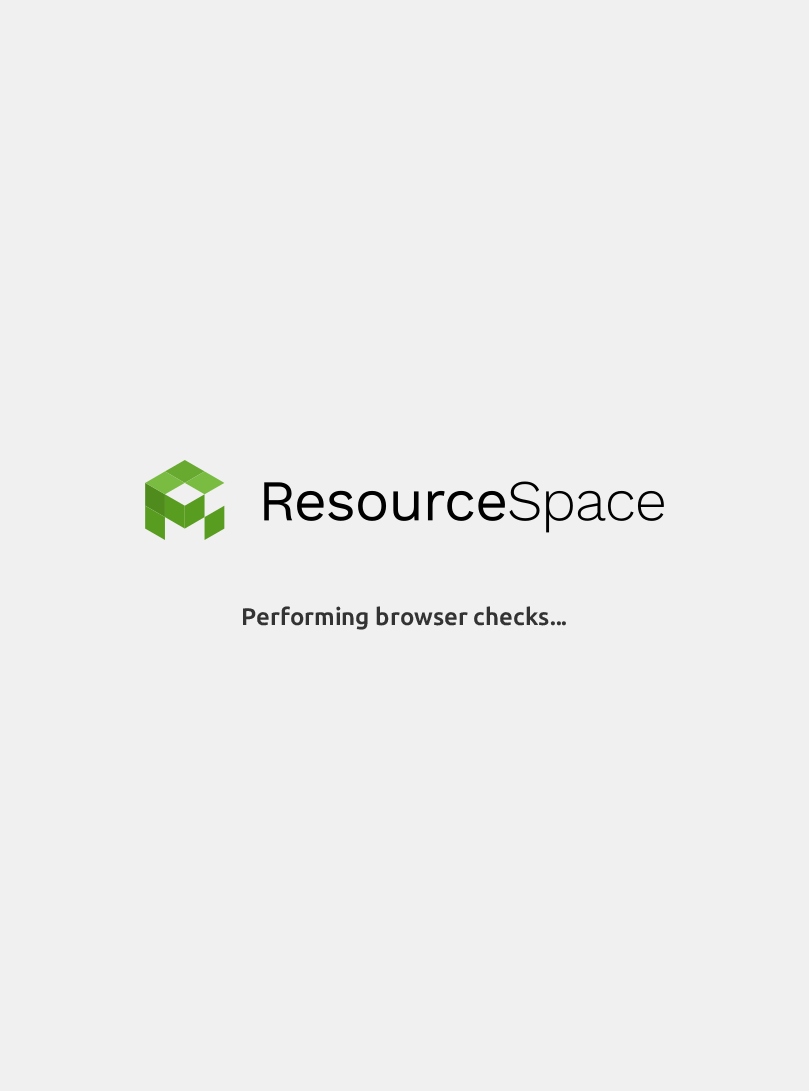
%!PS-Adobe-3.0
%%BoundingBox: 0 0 809 1091
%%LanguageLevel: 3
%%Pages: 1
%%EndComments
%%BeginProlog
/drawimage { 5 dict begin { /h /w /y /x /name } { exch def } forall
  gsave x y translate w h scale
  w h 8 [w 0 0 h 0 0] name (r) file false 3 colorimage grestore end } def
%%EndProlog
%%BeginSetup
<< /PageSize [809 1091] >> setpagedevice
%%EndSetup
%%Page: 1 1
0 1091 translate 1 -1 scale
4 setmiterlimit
0.941 setgray
0 0 809 1091 rectfill
(images/1.raw) 145 460 519 80 drawimage
/Ubuntu-Bold [24 0 0 -24 0 0] selectfont
0.2 setgray
241 625 moveto (Performing browser checks...) show
showpage
%%EOF
